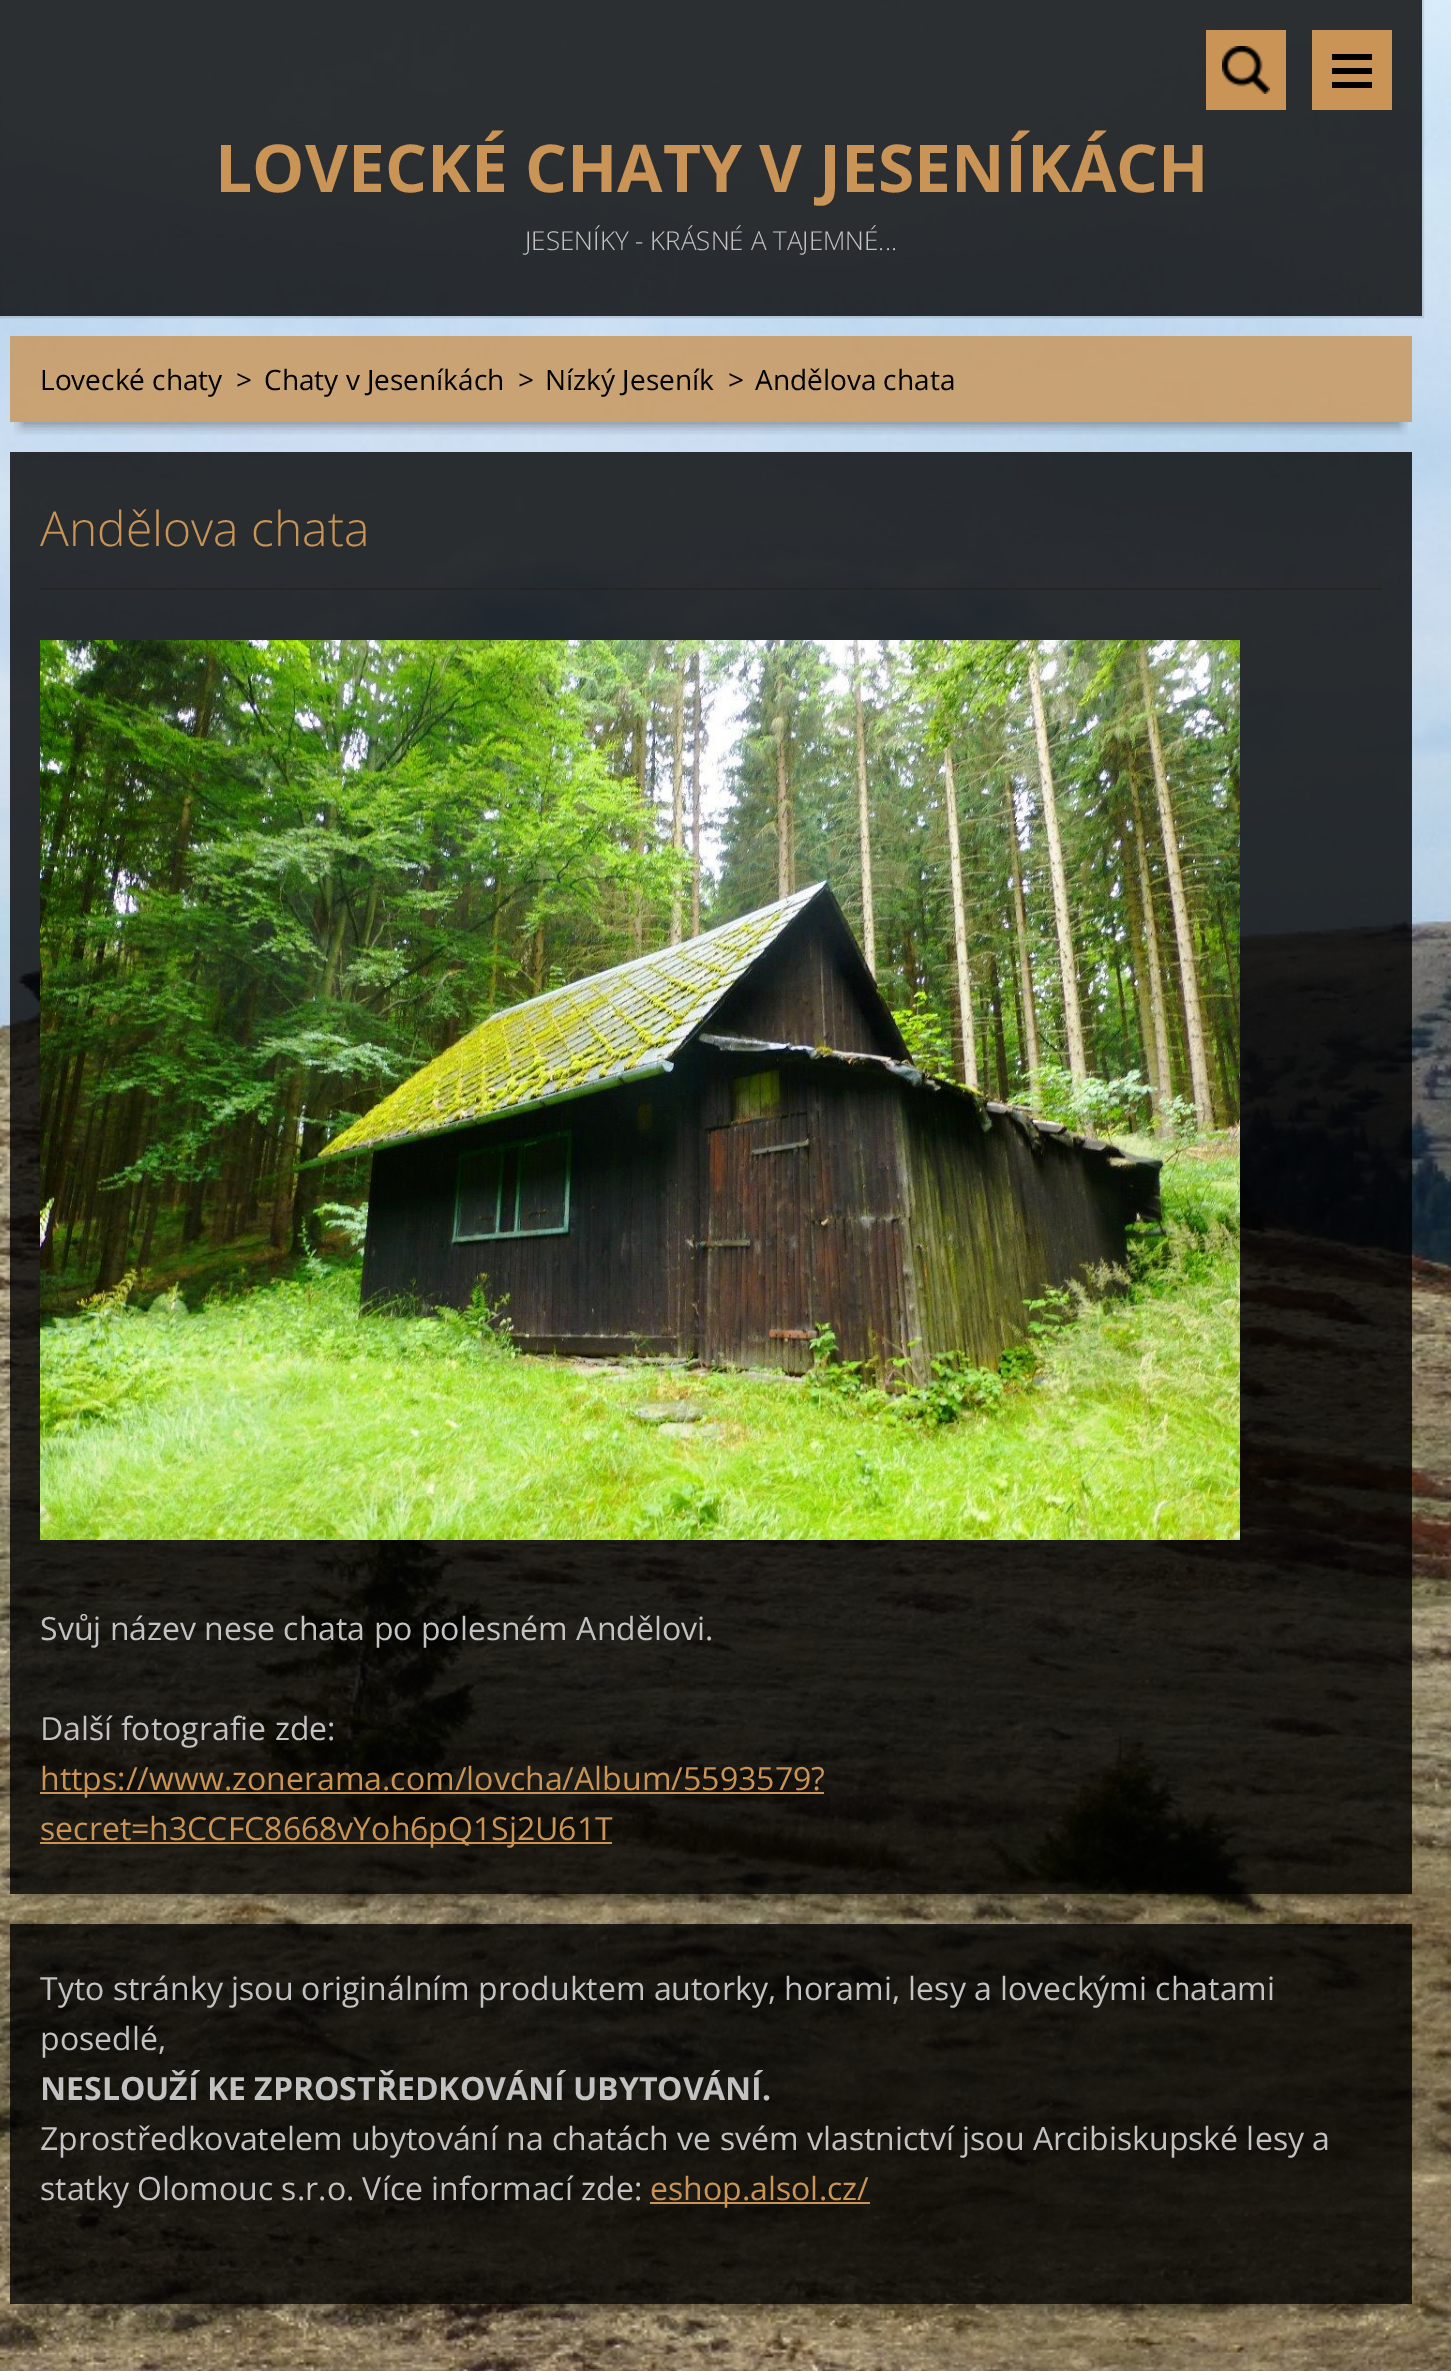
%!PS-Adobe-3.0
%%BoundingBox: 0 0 1451 2371
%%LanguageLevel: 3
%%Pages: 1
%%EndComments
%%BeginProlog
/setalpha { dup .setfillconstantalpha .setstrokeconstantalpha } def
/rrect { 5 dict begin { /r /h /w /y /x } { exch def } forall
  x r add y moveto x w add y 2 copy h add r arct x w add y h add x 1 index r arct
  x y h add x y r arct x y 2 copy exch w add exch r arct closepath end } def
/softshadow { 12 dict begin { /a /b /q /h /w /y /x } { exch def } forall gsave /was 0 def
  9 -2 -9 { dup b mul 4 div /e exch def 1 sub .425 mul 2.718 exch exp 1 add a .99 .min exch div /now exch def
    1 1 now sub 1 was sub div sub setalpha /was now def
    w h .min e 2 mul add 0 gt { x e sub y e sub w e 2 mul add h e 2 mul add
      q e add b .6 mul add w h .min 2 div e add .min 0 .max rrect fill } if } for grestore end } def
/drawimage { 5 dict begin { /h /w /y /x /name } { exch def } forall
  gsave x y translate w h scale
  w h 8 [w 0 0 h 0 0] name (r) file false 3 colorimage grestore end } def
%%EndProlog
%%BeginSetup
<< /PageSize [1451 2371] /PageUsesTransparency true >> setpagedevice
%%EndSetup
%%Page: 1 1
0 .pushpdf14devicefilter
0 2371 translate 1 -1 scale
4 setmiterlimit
1 setgray
0 0 1451 2371 rectfill
(images/1.raw) 0 0 1451 2371 drawimage
0.1 setalpha
0 setgray
2 setlinewidth
-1 -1 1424 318 rectstroke
0.8 setalpha
0 0 1422 216 rectfill
1 setalpha
0.788 0.58 0.333 setrgbcolor
1206 30 80 80 rectfill
(images/2.raw) 1222 46 48 48 drawimage
1312 30 80 80 rectfill
0 setgray
1332 54 40 6 rectfill
1332 68 40 6 rectfill
1332 82 40 6 rectfill
0.8 setalpha
0 216 1422 100 rectfill
gsave
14 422 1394 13 rectclip
1 setalpha
22 364 1378 62 0 6 0.35 softshadow
grestore
0.788 0.58 0.333 setrgbcolor
10 336 1402 86 rectfill
gsave
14 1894 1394 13 rectclip
1 setalpha
0 setgray
22 480 1378 1418 0 6 0.35 softshadow
grestore
0 setgray
10 452 1402 1402 rectfill
1 setalpha
0.149 0.145 0.145 setrgbcolor
40 588 1342 2 rectfill
(images/3.raw) 40 640 1200 900 drawimage
0.788 0.58 0.333 setrgbcolor
40 1792 784 2 rectfill
40 1842 572 2 rectfill
0.8 setalpha
0 setgray
10 1854 1402 40 rectfill
gsave
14 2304 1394 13 rectclip
1 setalpha
22 1952 1378 356 0 6 0.35 softshadow
grestore
10 1924 1402 340 rectfill
1 setalpha
0.788 0.58 0.333 setrgbcolor
650 2202 220 2 rectfill
0.8 setalpha
0 setgray
10 2264 1402 40 rectfill
/OpenSans-Bold [66 0 0 -66 0 0] selectfont
1 setalpha
0.788 0.58 0.333 setrgbcolor
215 192 moveto (LOVECKÉ CHATY V JESENÍKÁCH) show
/OpenSans-Light [26 0 0 -26 0 0] selectfont
0.761 setgray
525 250 moveto (JESENÍKY - KRÁSNÉ A TAJEMNÉ...) show
/OpenSans-Regular [28 0 0 -28 0 0] selectfont
0 setgray
40 390 moveto (Lovecké chaty) show
236 390 moveto (>) show
264 390 moveto (Chaty v Jeseníkách) show
518 390 moveto (>) show
545 390 moveto (Nízký Jeseník) show
728 390 moveto (>) show
755 390 moveto (Andělova chata) show
/OpenSans-Light [48 0 0 -48 0 0] selectfont
0.788 0.58 0.333 setrgbcolor
40 546 moveto (Andělova chata) show
/OpenSans-Regular [32 0 0 -32 0 0] selectfont
0.761 setgray
40 1640 moveto (Svůj název nese chata po polesném Andělovi.) show
40 1740 moveto (Další fotografie zde:) show
0.788 0.58 0.333 setrgbcolor
40 1790 moveto (https://www.zonerama.com/lovcha/Album/5593579?) show
40 1840 moveto (secret=h3CCFC8668vYoh6pQ1Sj2U61T) show
0.761 setgray
40 2000 moveto (Tyto stránky jsou originálním produktem autorky, horami, lesy a loveckými chatami) show
40 2050 moveto (posedlé,) show
/OpenSans-Bold [32 0 0 -32 0 0] selectfont
40 2100 moveto (NESLOUŽÍ KE ZPROSTŘEDKOVÁNÍ UBYTOVÁNÍ.) show
/OpenSans-Regular [32 0 0 -32 0 0] selectfont
40 2150 moveto (Zprostředkovatelem ubytování na chatách ve svém vlastnictví jsou Arcibiskupské lesy a) show
40 2200 moveto (statky Olomouc s.r.o. Více informací zde:) show
0.788 0.58 0.333 setrgbcolor
650 2200 moveto (eshop.alsol.cz/) show
.poppdf14devicefilter showpage
%%EOF
